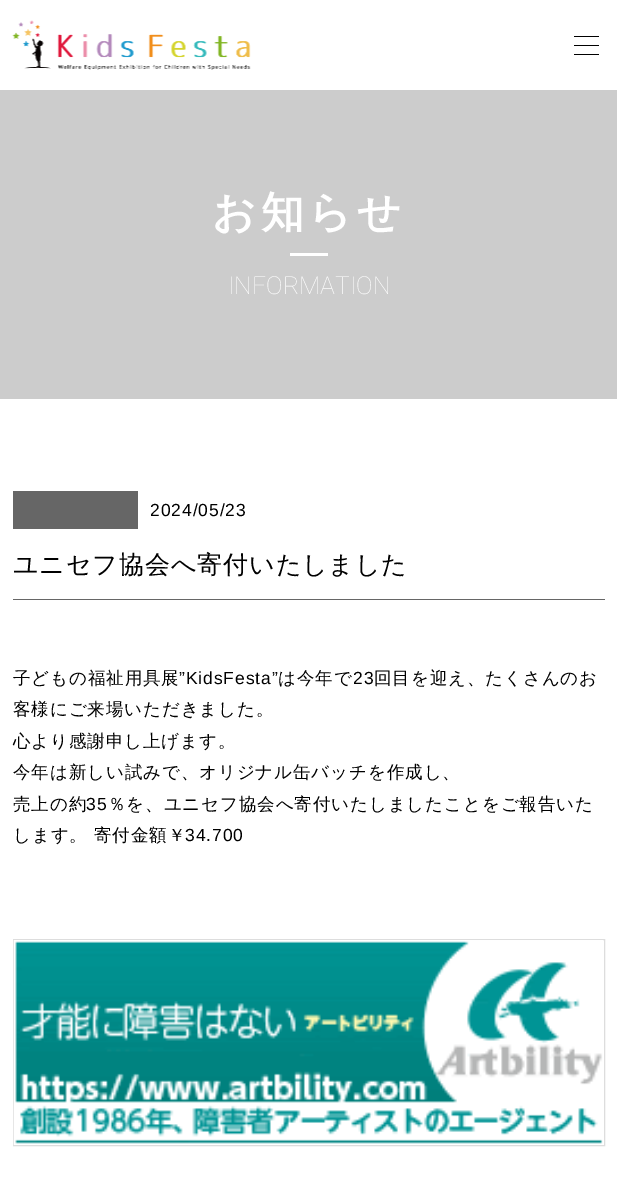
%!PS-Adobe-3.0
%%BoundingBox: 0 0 617 1194
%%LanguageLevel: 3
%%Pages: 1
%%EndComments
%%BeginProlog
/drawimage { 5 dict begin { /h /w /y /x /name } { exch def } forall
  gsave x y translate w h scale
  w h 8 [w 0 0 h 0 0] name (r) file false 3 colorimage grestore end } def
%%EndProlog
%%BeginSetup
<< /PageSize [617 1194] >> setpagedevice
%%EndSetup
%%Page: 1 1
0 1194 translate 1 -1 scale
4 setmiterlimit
1 setgray
0 0 617 1194 rectfill
(images/1.raw) 12 20 239 50 drawimage
0 setgray
574 45 25 1 rectfill
574 36 25 1 rectfill
574 54 25 1 rectfill
0.8 setgray
0 90 617 309 rectfill
1 setgray
290 253 38 3 rectfill
0.4 setgray
13 491 125 38 rectfill
13 599 592 1 rectfill
0.867 setgray
13.5 939.5 591 206 rectstroke
(images/2.raw) 13 940 590 205 drawimage
/WenQuanYiZenHei-Bold [43 0 0 -43 0 0] selectfont
1 setgray
212 227 moveto 4.5 0 (お知らせ) ashow
/Roboto-Thin [24.75 0 0 -24.75 0 0] selectfont
228 294 moveto (INFORMATION) show
/LiberationSans-Regular [17.5 0 0 -17.5 0 0] selectfont
0 setgray
150 516 moveto 0.9 0 (2024/05/23) ashow
/WenQuanYiZenHei-Medium [25 0 0 -25 0 0] selectfont
13 573 moveto 0.9 0 (ユニセフ協会へ寄付いたしました) ashow
/WenQuanYiZenHei-Medium [17.5 0 0 -17.5 0 0] selectfont
13 684 moveto 0.9 0 (子どもの福祉用具展) ashow
/LiberationSans-Regular [17.5 0 0 -17.5 0 0] selectfont
179 684 moveto 0.9 0 (”KidsFesta”) ashow
/WenQuanYiZenHei-Medium [17.5 0 0 -17.5 0 0] selectfont
278 684 moveto 0.9 0 (は今年で) ashow
/LiberationSans-Regular [17.5 0 0 -17.5 0 0] selectfont
353 684 moveto 0.9 0 (23) ashow
/WenQuanYiZenHei-Medium [17.5 0 0 -17.5 0 0] selectfont
374 684 moveto 0.9 0 (回目を迎え、たくさんのお) ashow
13 715 moveto 0.9 0 (客様にご来場いただきました。) ashow
13 747 moveto 0.9 0 (心より感謝申し上げます。) ashow
13 778 moveto 0.9 0 (今年は新しい試みで、オリジナル缶バッチを作成し、) ashow
13 810 moveto 0.9 0 (売上の約) ashow
/LiberationSans-Regular [17.5 0 0 -17.5 0 0] selectfont
86 810 moveto 0.9 0 (35) ashow
/WenQuanYiZenHei-Medium [17.5 0 0 -17.5 0 0] selectfont
108 810 moveto 0.9 0 (％を、ユニセフ協会へ寄付いたしましたことをご報告いた) ashow
13 841 moveto 0.9 0 (します。 寄付金額￥) ashow
/LiberationSans-Regular [17.5 0 0 -17.5 0 0] selectfont
185 841 moveto 0.9 0 (34.700) ashow
showpage
%%EOF
